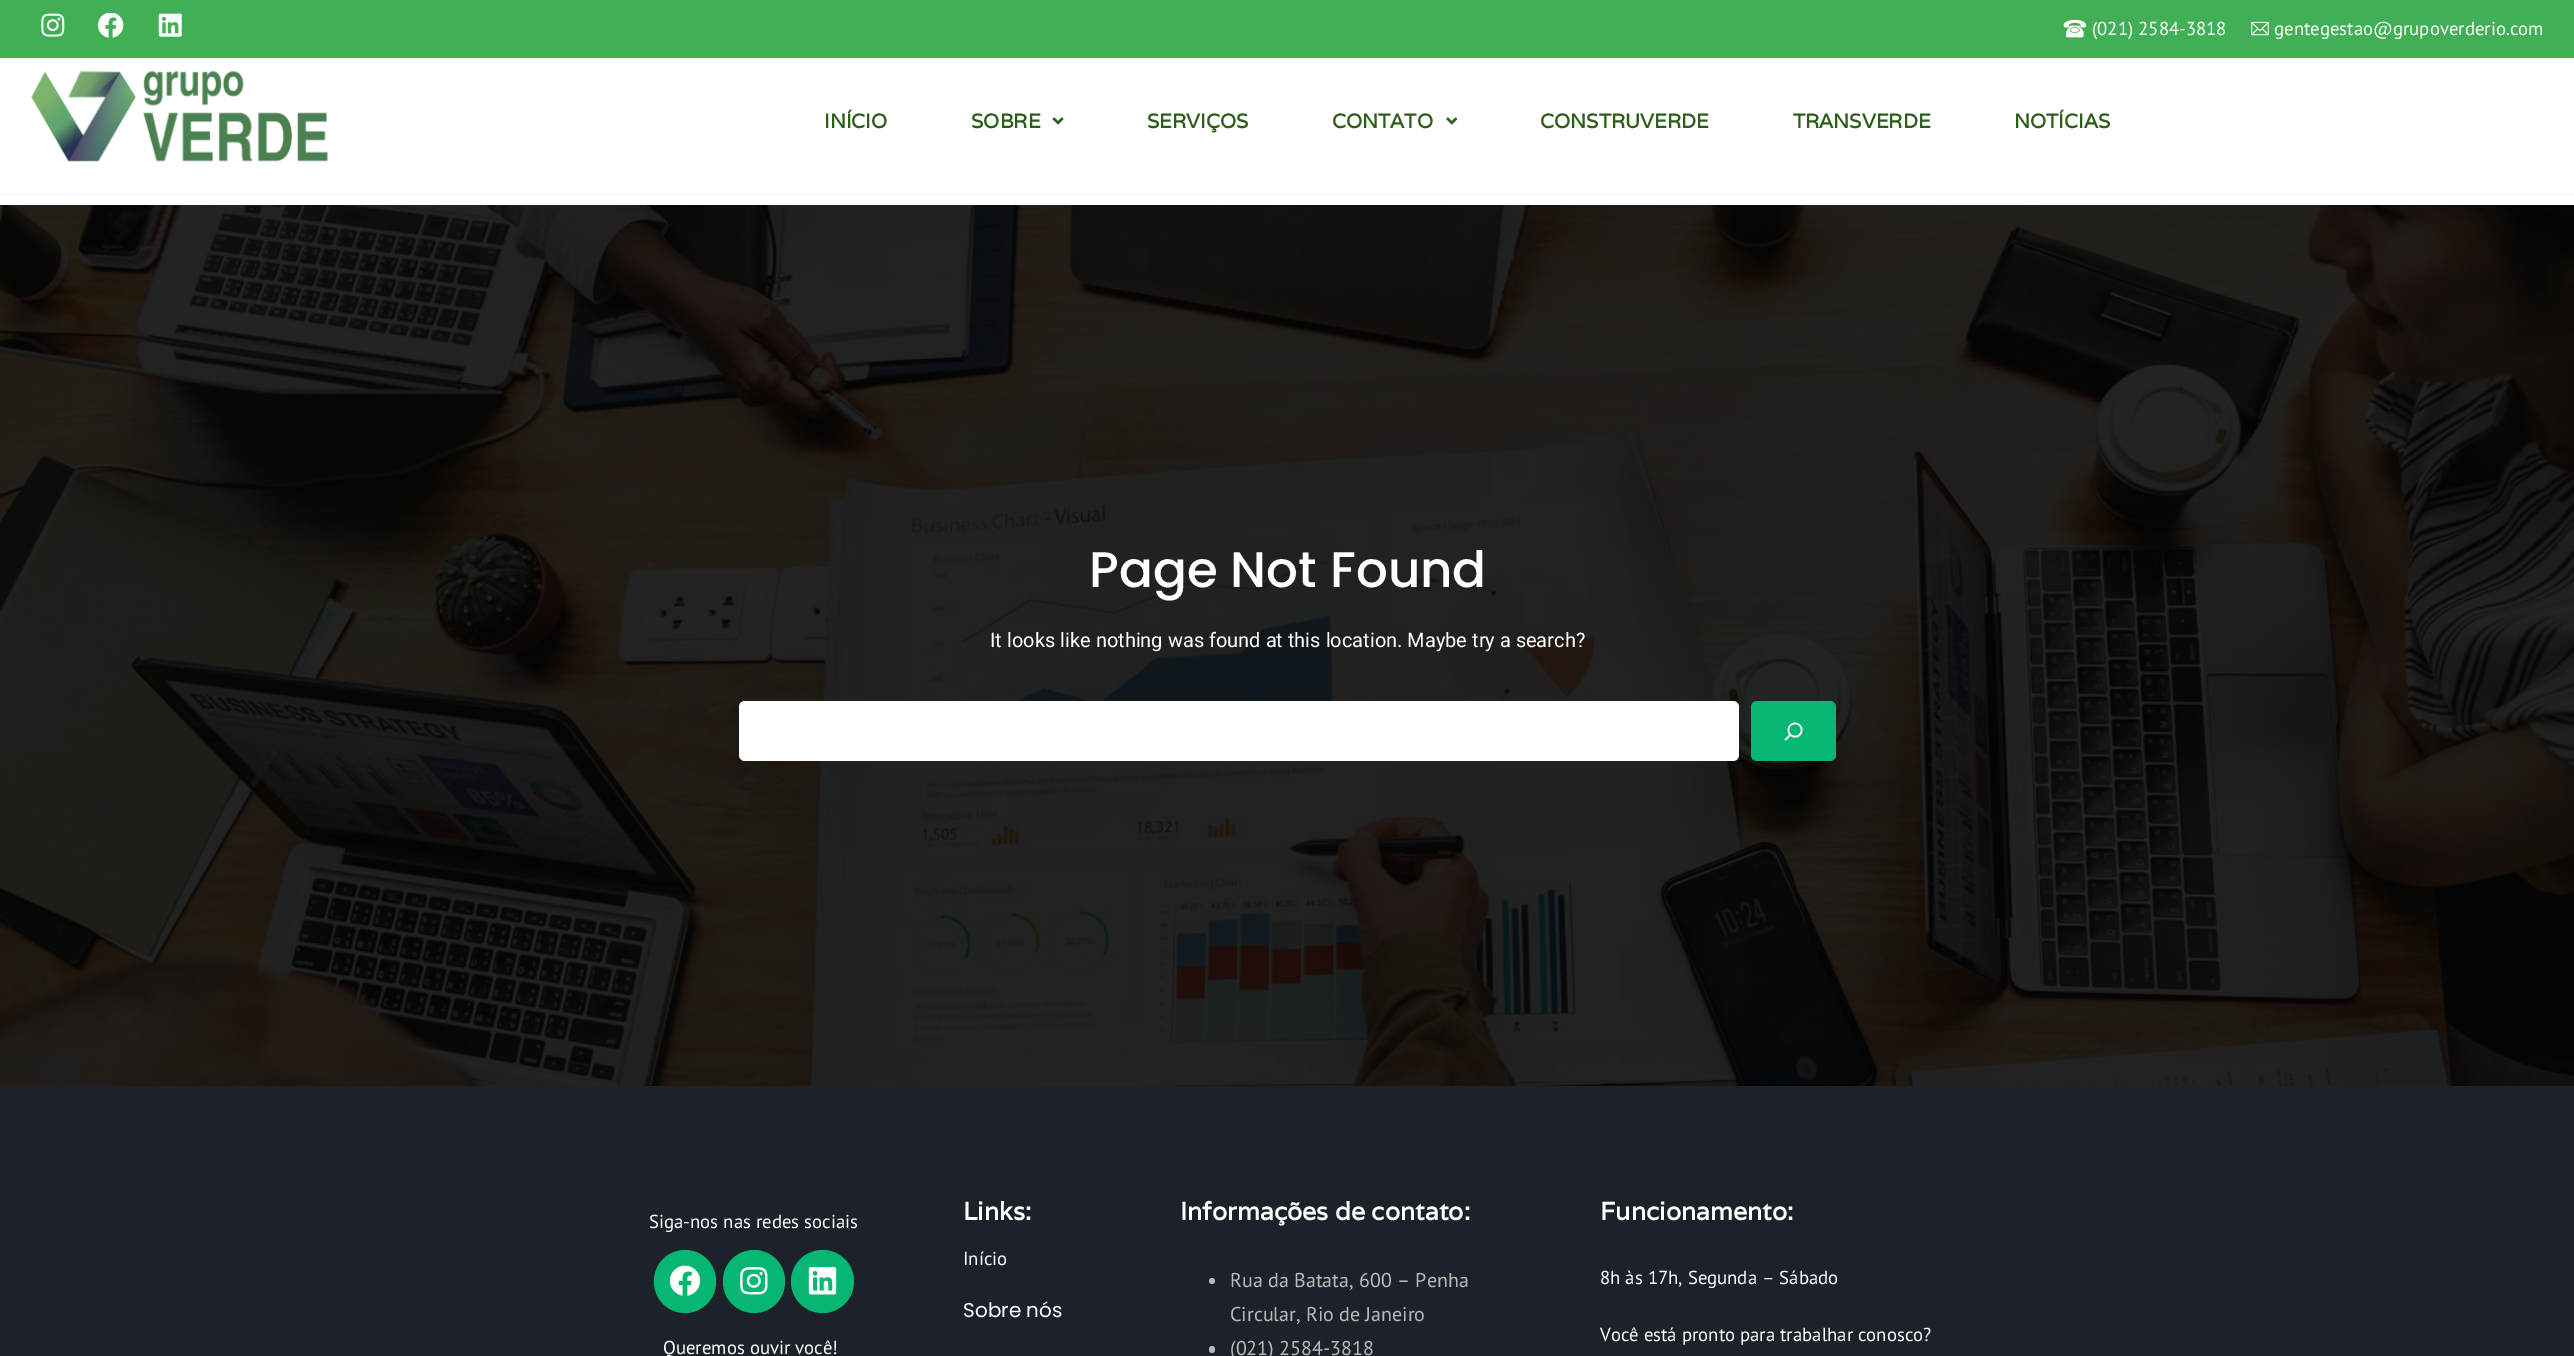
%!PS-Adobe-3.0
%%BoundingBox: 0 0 2574 1356
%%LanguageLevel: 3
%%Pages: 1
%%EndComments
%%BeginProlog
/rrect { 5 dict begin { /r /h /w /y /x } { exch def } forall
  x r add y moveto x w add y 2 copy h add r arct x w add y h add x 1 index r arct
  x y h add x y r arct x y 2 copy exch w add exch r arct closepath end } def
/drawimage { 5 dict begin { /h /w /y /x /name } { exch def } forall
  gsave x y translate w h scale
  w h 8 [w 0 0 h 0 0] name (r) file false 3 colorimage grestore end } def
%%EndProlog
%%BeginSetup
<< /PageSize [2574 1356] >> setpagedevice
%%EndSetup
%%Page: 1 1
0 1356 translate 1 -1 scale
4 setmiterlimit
1 setgray
0 0 2574 1356 rectfill
0.255 0.686 0.333 setrgbcolor
0 0 2574 58 rectfill
(images/1.raw) 41 13 24 24 drawimage
(images/2.raw) 97 13 27 25 drawimage
(images/3.raw) 158 13 24 24 drawimage
(images/4.raw) 2063 19 23 19 drawimage
(images/5.raw) 2251 21 18 15 drawimage
(images/6.raw) 31 71 297 91 drawimage
(images/7.raw) 1052 117 12 8 drawimage
(images/8.raw) 1446 117 12 8 drawimage
0.949 0.953 0.953 setrgbcolor
0 194 2574 1 rectfill
(images/9.raw) 0 205 2574 881 drawimage
1 setgray
739 701 1000 60 6 rrect fill
0.02 0.718 0.447 setrgbcolor
1751 701 85 60 6 rrect fill
(images/10.raw) 1784 722 19 19 drawimage
0.114 0.133 0.165 setrgbcolor
0 1086 2574 270 rectfill
0.02 0.718 0.447 setrgbcolor
654 1250 62 63 31 rrect fill
(images/11.raw) 669 1265 32 31 drawimage
723 1250 62 63 31 rrect fill
(images/12.raw) 740 1267 28 28 drawimage
newpath 822.5 1281.5 31.5 0 360 arc closepath fill
(images/13.raw) 808 1267 29 28 drawimage
0.729 setgray
newpath 1212 1281 3 0 360 arc closepath fill
1209 1346 6 7 3 rrect fill
/PTSans-Regular [18.75 0 0 -18.75 0 0] selectfont
1 setgray
2092 35 moveto (\(021\) 2584-3818) show
2274 35 moveto (gentegestao@grupoverderio.com) show
/Varela-Bold [20 0 0 -20 0 0] selectfont
0.173 0.369 0.102 setrgbcolor
824 128 moveto (INÍCIO) show
971 128 moveto (SOBRE) show
1147 128 moveto (SERVIÇOS) show
1332 128 moveto (CONTATO) show
1540 128 moveto (CONSTRUVERDE) show
1793 128 moveto (TRANSVERDE) show
2014 128 moveto (NOTÍCIAS) show
/Poppins-Medium [50 0 0 -50 0 0] selectfont
1 setgray
1089 587 moveto (Page Not Found) show
/Heebo-Regular [20 0 0 -20 0 0] selectfont
990 647 moveto (It looks like nothing was found at this location. Maybe try a search?) show
/PTSans-Regular [18.75 0 0 -18.75 0 0] selectfont
649 1228 moveto (Siga-nos nas redes sociais) show
663 1354 moveto (Queremos ouvir você!) show
/Varela-Bold [25 0 0 -25 0 0] selectfont
963 1220 moveto (Links:) show
/PTSans-Regular [18.75 0 0 -18.75 0 0] selectfont
963 1265 moveto (Início) show
/Poppins-Regular [20 0 0 -20 0 0] selectfont
963 1317 moveto (Sobre nós) show
/Varela-Bold [25 0 0 -25 0 0] selectfont
1180 1220 moveto (Informações de contato:) show
/PTSans-Regular [20 0 0 -20 0 0] selectfont
0.729 setgray
1230 1287 moveto (Rua da Batata, 600 – Penha) show
1230 1321 moveto (Circular, Rio de Janeiro) show
1230 1355 moveto (\(021\) 2584-3818) show
/Varela-Bold [25 0 0 -25 0 0] selectfont
1 setgray
1600 1220 moveto (Funcionamento:) show
/PTSans-Regular [18.75 0 0 -18.75 0 0] selectfont
1600 1284 moveto (8h às 17h, Segunda – Sábado) show
1600 1341 moveto (Você está pronto para trabalhar conosco?) show
showpage
%%EOF
